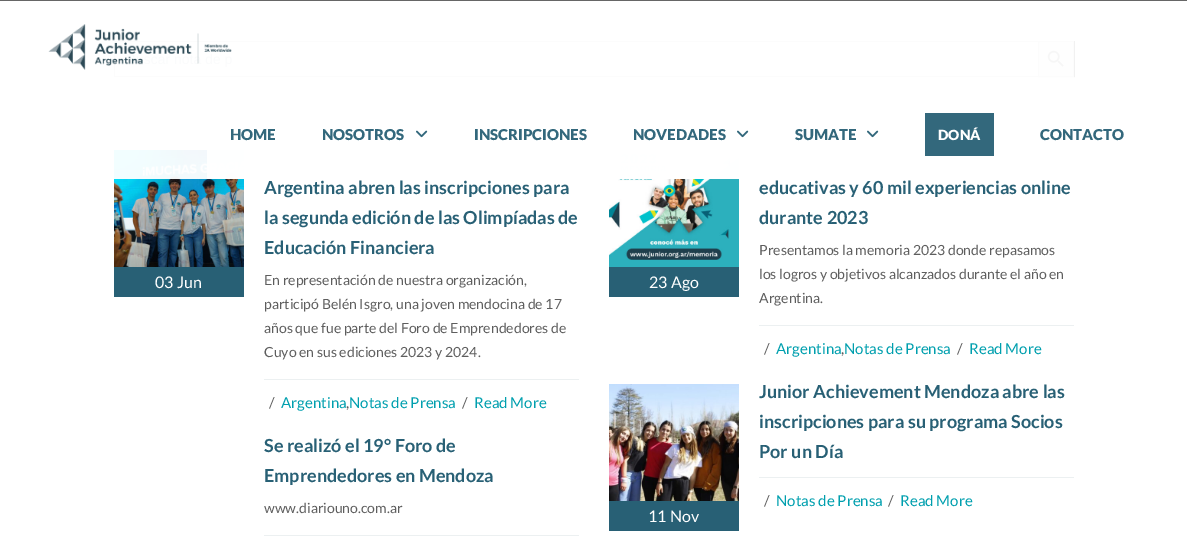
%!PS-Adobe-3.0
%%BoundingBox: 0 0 1187 547
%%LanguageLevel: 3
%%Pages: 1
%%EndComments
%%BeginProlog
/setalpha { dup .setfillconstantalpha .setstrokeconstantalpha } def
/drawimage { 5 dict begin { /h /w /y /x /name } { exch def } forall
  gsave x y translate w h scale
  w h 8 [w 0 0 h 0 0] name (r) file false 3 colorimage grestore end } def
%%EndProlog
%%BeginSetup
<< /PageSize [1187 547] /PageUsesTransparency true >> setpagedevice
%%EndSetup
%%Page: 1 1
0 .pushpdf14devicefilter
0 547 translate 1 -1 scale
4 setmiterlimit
1 setgray
0 0 1187 547 rectfill
0.8 setgray
114 41 924 1 rectfill
114 76 924 1 rectfill
114 41 1 36 rectfill
0.929 setgray
newpath 1038.5 41.5 moveto 1073.5 41.5 lineto 1073.5 76.5 lineto 1038.5 76.5 lineto closepath gsave fill grestore
0.8 setgray
stroke
(images/3.raw) 1047 50 17 17 drawimage
(images/4.raw) 114 150 130 117 drawimage
(images/5.raw) 609 153 130 114 drawimage
0.95 setalpha
1 setgray
114 41 960 138 rectfill
1 setalpha
0.4 setgray
0 0 1187 1 rectfill
(images/1.raw) 48 24 184 46 drawimage
0.95 setalpha
1 setgray
207 150 532 29 rectfill
1 setalpha
(images/2.raw) 416 130 12 8 drawimage
(images/2.raw) 737 130 12 8 drawimage
(images/2.raw) 867 130 12 8 drawimage
0.2 0.408 0.486 setrgbcolor
925 113 69 43 rectfill
0.157 0.376 0.459 setrgbcolor
114 267 130 30 rectfill
0.925 0.941 0.945 setrgbcolor
264 379 315 1 rectfill
0.157 0.376 0.459 setrgbcolor
609 267 130 30 rectfill
0.925 0.941 0.945 setrgbcolor
759 325 315 1 rectfill
264 535 315 1 rectfill
759 477 315 1 rectfill
(images/6.raw) 609 384 130 117 drawimage
0.157 0.376 0.459 setrgbcolor
609 501 130 30 rectfill
/Lato-Black [15 0 0 -15 0 0] selectfont
0.2 0.408 0.486 setrgbcolor
230 140 moveto (HOME) show
322 140 moveto (NOSOTROS) show
474 140 moveto (INSCRIPCIONES) show
633 140 moveto (NOVEDADES) show
795 140 moveto (SUMATE) show
/Lato-Black [14 0 0 -14 0 0] selectfont
1 setgray
938 140 moveto (DONÁ) show
/Lato-Black [15 0 0 -15 0 0] selectfont
0.2 0.408 0.486 setrgbcolor
1040 140 moveto (CONTACTO) show
/Lato-Regular [16 0 0 -16 0 0] selectfont
1 setgray
155 288 moveto (03 Jun) show
/Lato-Bold [18 0 0 -18 0 0] selectfont
0.157 0.376 0.459 setrgbcolor
264 194 moveto (Argentina abren las inscripciones para) show
264 224 moveto (la segunda edición de las Olimpíadas de) show
264 254 moveto (Educación Financiera) show
/Lato-Regular [14 0 0 -14 0 0] selectfont
0.369 setgray
264 285 moveto (En representación de nuestra organización,) show
264 309 moveto (participó Belén Isgro, una joven mendocina de 17) show
264 333 moveto (años que fue parte del Foro de Emprendedores de) show
264 357 moveto (Cuyo en sus ediciones 2023 y 2024.) show
/Lato-Regular [15 0 0 -15 0 0] selectfont
269 408 moveto (/) show
0 0.624 0.682 setrgbcolor
281 408 moveto (Argentina) show
0.369 setgray
346 408 moveto (,) show
0 0.624 0.682 setrgbcolor
349 408 moveto (Notas de Prensa) show
0.369 setgray
462 408 moveto (/) show
0 0.624 0.682 setrgbcolor
474 408 moveto (Read More) show
/Lato-Regular [16 0 0 -16 0 0] selectfont
1 setgray
649 288 moveto (23 Ago) show
/Lato-Bold [18 0 0 -18 0 0] selectfont
0.157 0.376 0.459 setrgbcolor
759 194 moveto (educativas y 60 mil experiencias online) show
759 224 moveto (durante 2023) show
/Lato-Regular [14 0 0 -14 0 0] selectfont
0.369 setgray
759 255 moveto (Presentamos la memoria 2023 donde repasamos) show
759 279 moveto (los logros y objetivos alcanzados durante el año en) show
759 303 moveto (Argentina.) show
/Lato-Regular [15 0 0 -15 0 0] selectfont
764 354 moveto (/) show
0 0.624 0.682 setrgbcolor
776 354 moveto (Argentina) show
0.369 setgray
841 354 moveto (,) show
0 0.624 0.682 setrgbcolor
844 354 moveto (Notas de Prensa) show
0.369 setgray
957 354 moveto (/) show
0 0.624 0.682 setrgbcolor
969 354 moveto (Read More) show
/Lato-Bold [18 0 0 -18 0 0] selectfont
0.157 0.376 0.459 setrgbcolor
264 452 moveto (Se realizó el 19° Foro de) show
264 482 moveto (Emprendedores en Mendoza) show
/Lato-Regular [14 0 0 -14 0 0] selectfont
0.369 setgray
264 513 moveto (www.diariouno.com.ar) show
/Lato-Bold [18 0 0 -18 0 0] selectfont
0.157 0.376 0.459 setrgbcolor
759 398 moveto (Junior Achievement Mendoza abre las) show
759 428 moveto (inscripciones para su programa Socios) show
759 458 moveto (Por un Día) show
/Lato-Regular [15 0 0 -15 0 0] selectfont
0.369 setgray
764 506 moveto (/) show
0 0.624 0.682 setrgbcolor
776 506 moveto (Notas de Prensa) show
0.369 setgray
888 506 moveto (/) show
0 0.624 0.682 setrgbcolor
900 506 moveto (Read More) show
/Lato-Regular [16 0 0 -16 0 0] selectfont
1 setgray
648 522 moveto (11 Nov) show
.poppdf14devicefilter showpage
%%EOF
